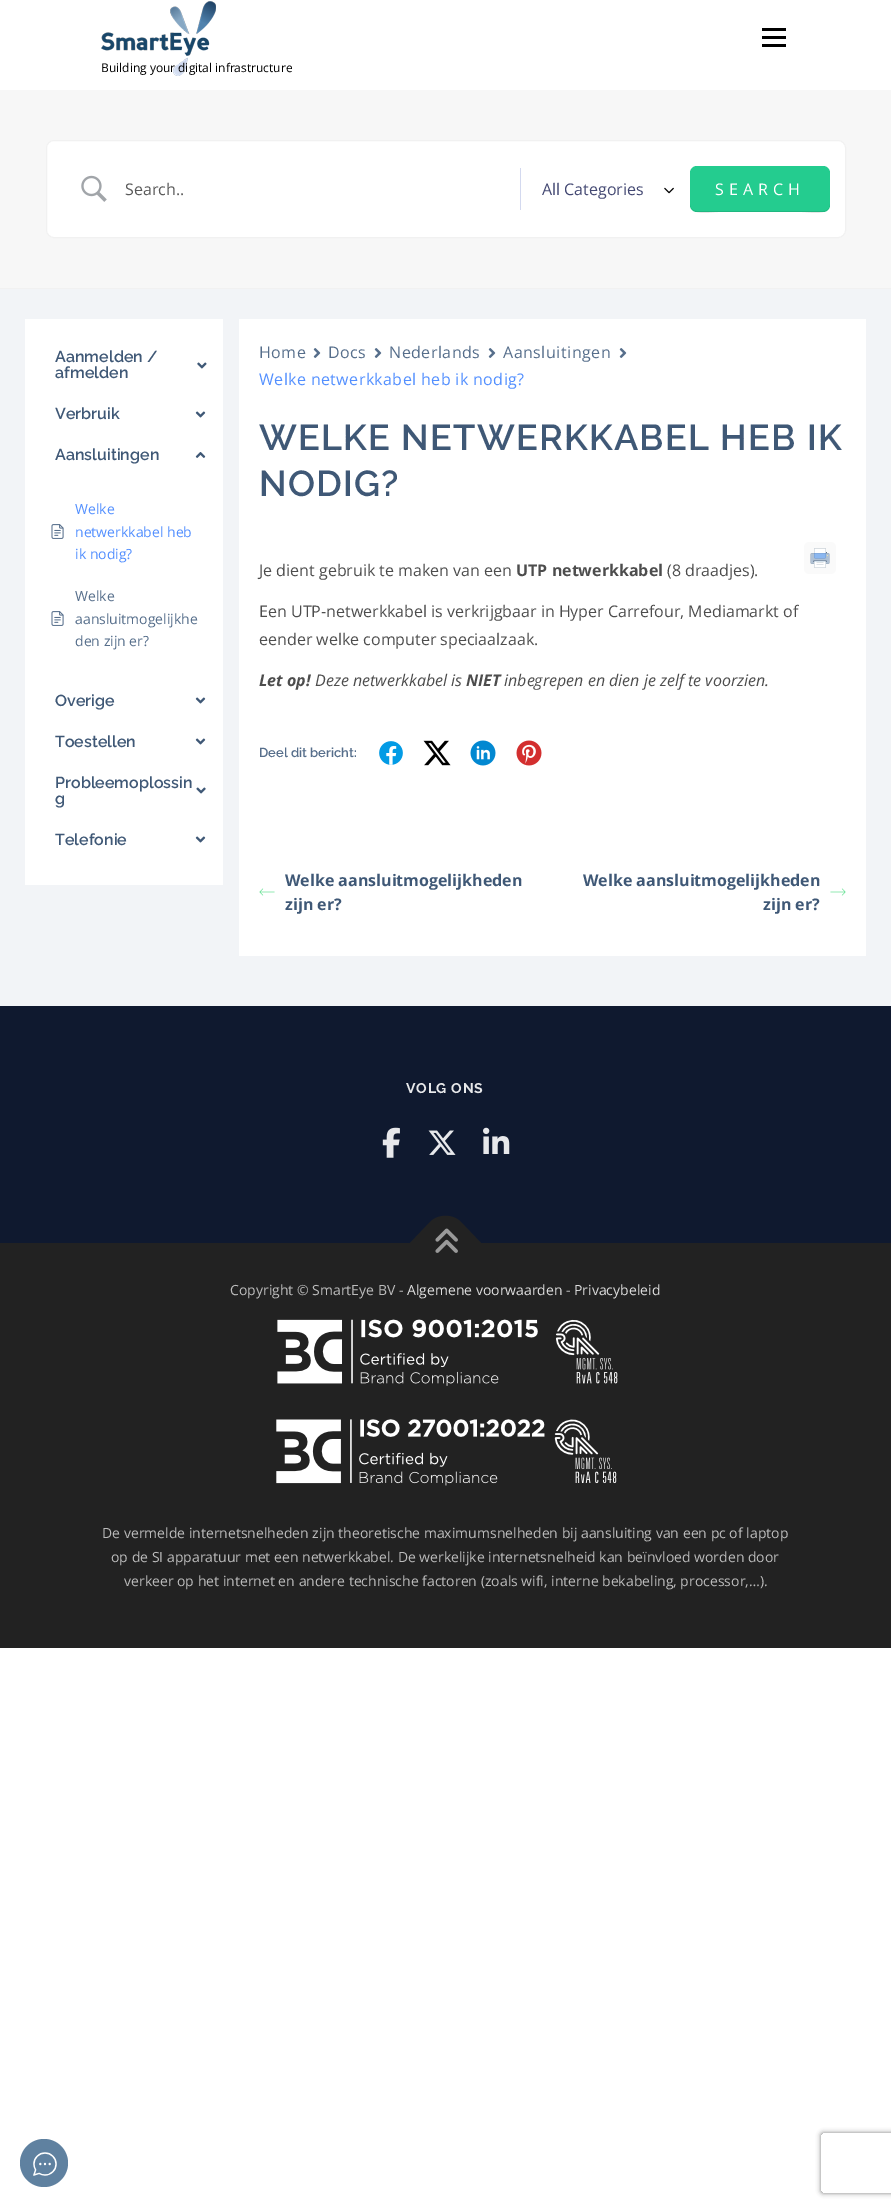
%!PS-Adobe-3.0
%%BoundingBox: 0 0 891 2207
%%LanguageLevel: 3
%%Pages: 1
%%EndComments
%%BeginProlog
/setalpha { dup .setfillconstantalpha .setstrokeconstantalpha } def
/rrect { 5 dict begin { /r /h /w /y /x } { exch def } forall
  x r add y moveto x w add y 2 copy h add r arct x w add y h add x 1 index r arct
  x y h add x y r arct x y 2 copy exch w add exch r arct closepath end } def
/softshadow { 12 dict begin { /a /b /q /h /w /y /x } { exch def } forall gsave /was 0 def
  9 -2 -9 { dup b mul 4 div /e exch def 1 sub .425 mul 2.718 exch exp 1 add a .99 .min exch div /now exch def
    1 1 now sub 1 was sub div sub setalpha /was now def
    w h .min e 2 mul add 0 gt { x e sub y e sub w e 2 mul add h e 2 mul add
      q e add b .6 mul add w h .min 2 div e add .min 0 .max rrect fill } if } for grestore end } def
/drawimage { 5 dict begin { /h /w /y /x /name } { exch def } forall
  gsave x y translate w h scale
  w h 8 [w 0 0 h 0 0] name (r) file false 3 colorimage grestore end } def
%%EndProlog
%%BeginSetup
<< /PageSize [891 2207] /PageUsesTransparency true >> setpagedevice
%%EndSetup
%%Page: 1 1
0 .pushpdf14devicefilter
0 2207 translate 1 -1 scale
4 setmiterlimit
1 setgray
0 0 891 2207 rectfill
0 setgray
762 36 24 3 rectfill
762 28 24 3 rectfill
762 44 24 3 rectfill
(images/1.raw) 101 1 115 75 drawimage
0.949 0.957 0.969 setrgbcolor
0 289 891 717 rectfill
0.969 setgray
0 90 891 198 rectfill
0.945 setgray
0 288 891 1 rectfill
1 setgray
46.5 140.5 799 97 7.5 rrect gsave fill grestore
0.945 setgray
stroke
(images/2.raw) 81 175 26 27 drawimage
(images/3.raw) 664 187 10 7 drawimage
0.827 0.851 0.937 setrgbcolor
520 168 1 42 rectfill
0.141 0.8 0.561 setrgbcolor
690 166 140 46 7 rrect fill
0.1 setalpha
0 setgray
newpath 690 204 moveto 690 217 712 212 718 212 curveto 802 212 lineto 808 212 830 217 830 204 curveto 830 208 827 211 823 211 curveto 697 211 lineto 693 211 690 208 690 204 curveto closepath fill
1 setalpha
1 setgray
25 319 198 566 rectfill
(images/4.raw) 197 362 10 7 drawimage
(images/5.raw) 195 411 11 7 drawimage
(images/6.raw) 195 452 11 6 drawimage
(images/7.raw) 51 524 13 15 drawimage
(images/7.raw) 51 611 13 15 drawimage
(images/5.raw) 195 697 11 7 drawimage
(images/5.raw) 195 738 11 7 drawimage
(images/8.raw) 196 787 10 7 drawimage
(images/5.raw) 195 836 11 7 drawimage
239 319 627 637 rectfill
(images/9.raw) 313 348 8 10 drawimage
(images/9.raw) 374 348 8 10 drawimage
(images/9.raw) 488 348 8 10 drawimage
(images/9.raw) 619 348 8 10 drawimage
0.98 setgray
804 542 32 32 5 rrect fill
(images/10.raw) 810 548 20 20 drawimage
(images/11.raw) 379 741 24 24 drawimage
(images/12.raw) 423 740 28 26 drawimage
(images/13.raw) 470 740 26 26 drawimage
(images/14.raw) 516 740 26 26 drawimage
(images/15.raw) 259 888 16 8 drawimage
(images/16.raw) 830 888 16 8 drawimage
0.059 0.098 0.184 setrgbcolor
0 1006 891 237 rectfill
(images/17.raw) 382 1127 18 31 drawimage
(images/18.raw) 428 1130 28 25 drawimage
(images/19.raw) 483 1127 27 27 drawimage
0.133 setgray
0 1243 891 405 rectfill
newpath 410 1243 moveto 431 1221 lineto 439 1214 452 1214 460 1221 curveto 481 1243 lineto 446 1278 lineto closepath fill
(images/20.raw) 435 1228 23 25 drawimage
(images/21.raw) 277 1319 341 67 drawimage
(images/22.raw) 276 1419 341 67 drawimage
0.373 0.506 0.627 setrgbcolor
newpath 44 2163 24 0 360 arc closepath fill
(images/23.raw) 33 2152 24 24 drawimage
gsave
newpath 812 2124 moveto 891 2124 lineto 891 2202 lineto 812 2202 lineto closepath 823 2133 moveto 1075 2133 lineto 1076 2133 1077 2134 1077 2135 curveto 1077 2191 lineto 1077 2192 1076 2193 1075 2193 curveto 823 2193 lineto 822 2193 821 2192 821 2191 curveto 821 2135 lineto 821 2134 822 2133 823 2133 curveto closepath eoclip newpath
0.502 setgray
821 2133 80 60 2 2.5 1 softshadow
grestore
/OpenSans-Regular [12 0 0 -12 0 0] selectfont
0 setgray
101 72 moveto (Building your digital infrastructure) show
/OpenSans-Regular [16 0 0 -16 0 0] selectfont
0.349 setgray
125 195 moveto (Search..) show
0.263 0.282 0.447 setrgbcolor
542 195 moveto (All Categories) show
1 setgray
715 195 moveto 5 0 (SEARCH) ashow
/Raleway-SemiBold [16 0 0 -16 0 0] selectfont
0.247 0.345 0.463 setrgbcolor
55 362 moveto (Aanmelden /) show
55 378 moveto (afmelden) show
55 419 moveto (Verbruik) show
55 460 moveto (Aansluitingen) show
/OpenSans-Regular [14 0 0 -14 0 0] selectfont
0.322 0.561 1 setrgbcolor
75 514 moveto (Welke) show
75 537 moveto (netwerkkabel heb) show
75 559 moveto (ik nodig?) show
0.337 0.431 0.545 setrgbcolor
75 601 moveto (Welke) show
75 624 moveto (aansluitmogelijkhe) show
75 646 moveto (den zijn er?) show
/Raleway-SemiBold [16 0 0 -16 0 0] selectfont
0.247 0.345 0.463 setrgbcolor
55 706 moveto (Overige) show
55 747 moveto (Toestellen) show
55 788 moveto (Probleemoplossin) show
55 804 moveto (g) show
55 845 moveto (Telefonie) show
/OpenSans-Regular [16 0 0 -16 0 0] selectfont
0.337 0.431 0.545 setrgbcolor
259 358 moveto 0.5 0 (Home) ashow
328 358 moveto 0.5 0 (Docs) ashow
389 358 moveto 0.5 0 (Nederlands) ashow
503 358 moveto 0.5 0 (Aansluitingen) ashow
0.322 0.561 1 setrgbcolor
259 385 moveto 0.4 0 (Welke netwerkkabel heb ik nodig?) ashow
/Raleway-SemiBold [36 0 0 -36 0 0] selectfont
0.247 0.345 0.463 setrgbcolor
259 450 moveto 1.25 0 (WELKE NETWERKKABEL HEB IK) ashow
259 496 moveto 1.25 0 (NODIG?) ashow
/OpenSans-Regular [16 0 0 -16 0 0] selectfont
0.302 setgray
259 576 moveto (Je dient gebruik te maken van een) show
/OpenSans-Bold [16 0 0 -16 0 0] selectfont
516 576 moveto (UTP netwerkkabel) show
/OpenSans-Regular [16 0 0 -16 0 0] selectfont
667 576 moveto (\(8 draadjes\).) show
259 617 moveto (Een UTP-netwerkkabel is verkrijgbaar in Hyper Carrefour, Mediamarkt of) show
259 645 moveto (eender welke computer speciaalzaak.) show
/OpenSans-BoldItalic [16 0 0 -16 0 0] selectfont
259 686 moveto (Let op!) show
/OpenSans-Italic [16 0 0 -16 0 0] selectfont
315 686 moveto (Deze netwerkkabel is) show
/OpenSans-BoldItalic [16 0 0 -16 0 0] selectfont
466 686 moveto (NIET) show
/OpenSans-Italic [16 0 0 -16 0 0] selectfont
504 686 moveto (inbegrepen en dien je zelf te voorzien.) show
/Raleway-SemiBold [13 0 0 -13 0 0] selectfont
0.337 0.431 0.545 setrgbcolor
259 757 moveto (Deel dit bericht:) show
/OpenSans-Bold [16 0 0 -16 0 0] selectfont
0.247 0.345 0.463 setrgbcolor
285 886 moveto (Welke aansluitmogelijkheden) show
285 910 moveto (zijn er?) show
583 886 moveto (Welke aansluitmogelijkheden) show
763 910 moveto (zijn er?) show
/Raleway-Bold [14 0 0 -14 0 0] selectfont
0.906 0.91 0.918 setrgbcolor
406 1093 moveto 0.75 0 (VOLG ONS) ashow
/OpenSans-Regular [14 0 0 -14 0 0] selectfont
0.733 setgray
230 1295 moveto (Copyright © SmartEye BV -) show
0.867 setgray
407 1295 moveto (Algemene voorwaarden) show
0.733 setgray
566 1295 moveto (-) show
0.867 setgray
574 1295 moveto (Privacybeleid) show
0.733 setgray
102 1538 moveto (De vermelde internetsnelheden zijn theoretische maximumsnelheden bij aansluiting van een pc of laptop) show
111 1562 moveto (op de SI apparatuur met een netwerkkabel. De werkelijke internetsnelheid kan beïnvloed worden door) show
124 1586 moveto (verkeer op het internet en andere technische factoren \(zoals wifi, interne bekabeling, processor,…\).) show
.poppdf14devicefilter showpage
%%EOF
